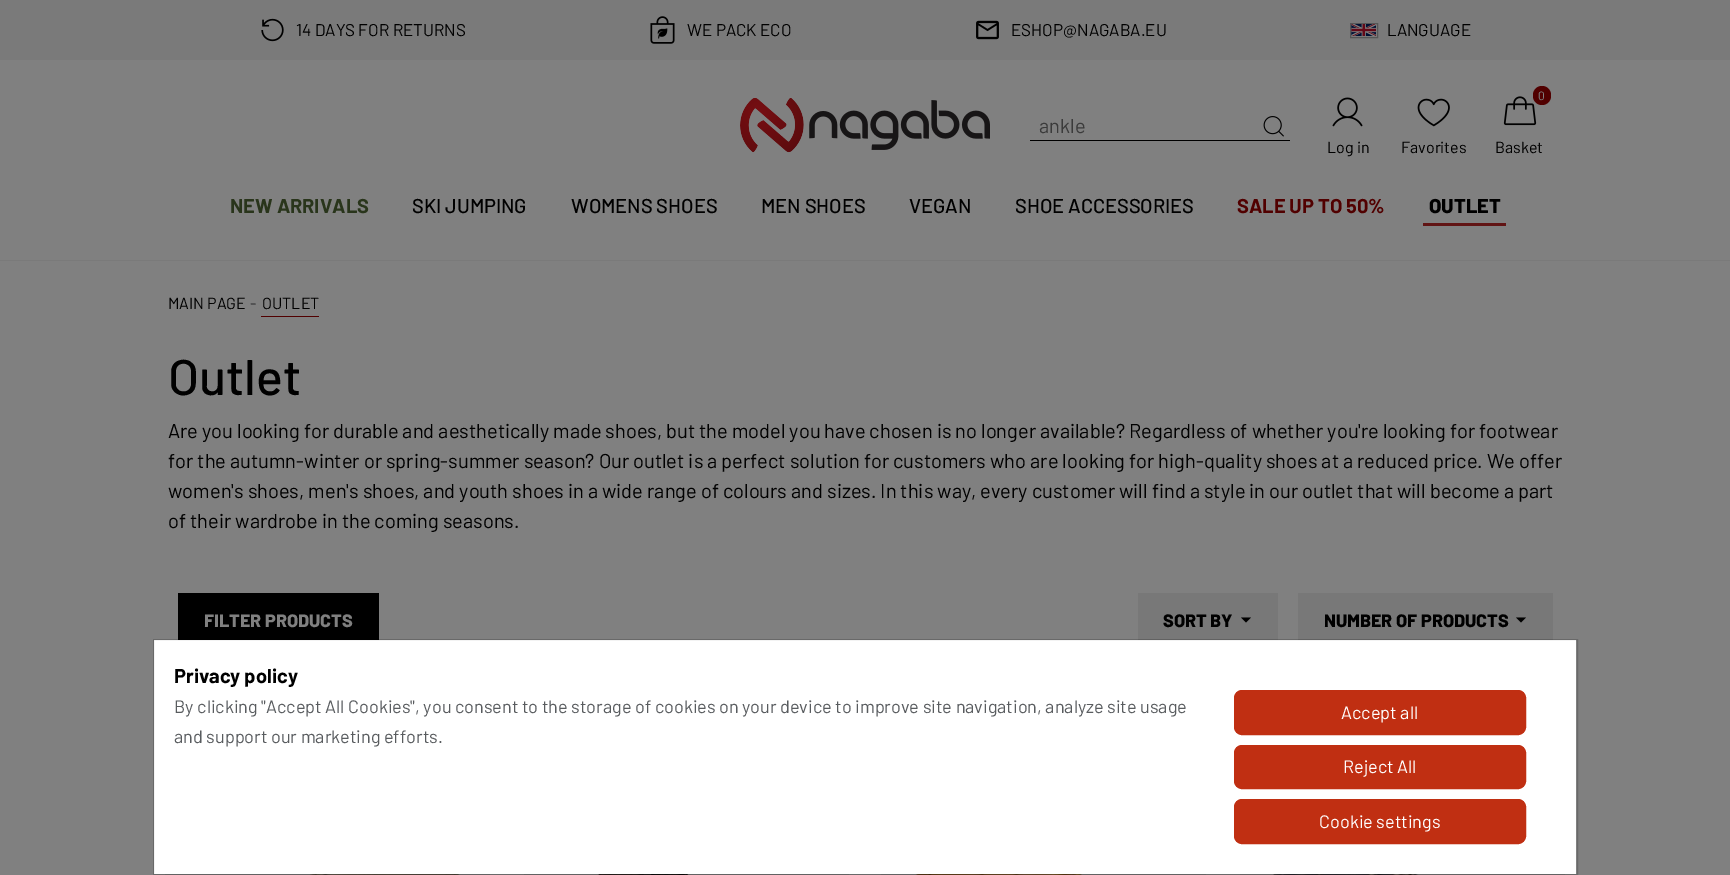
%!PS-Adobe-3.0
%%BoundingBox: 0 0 1730 875
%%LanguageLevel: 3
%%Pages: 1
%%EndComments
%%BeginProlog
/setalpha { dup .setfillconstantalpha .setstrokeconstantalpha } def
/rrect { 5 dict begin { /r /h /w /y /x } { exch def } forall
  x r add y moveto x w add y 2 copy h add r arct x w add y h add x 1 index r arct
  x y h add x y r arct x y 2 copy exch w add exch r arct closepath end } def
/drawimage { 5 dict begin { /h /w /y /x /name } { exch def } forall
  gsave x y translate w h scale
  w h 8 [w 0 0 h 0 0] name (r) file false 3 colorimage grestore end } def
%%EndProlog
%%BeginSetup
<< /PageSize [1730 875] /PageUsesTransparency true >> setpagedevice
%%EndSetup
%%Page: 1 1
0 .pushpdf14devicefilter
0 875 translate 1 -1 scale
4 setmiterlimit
0.478 setgray
0 0 1730 875 rectfill
(images/1.raw) 261 18 23 24 drawimage
(images/2.raw) 650 16 25 28 drawimage
(images/3.raw) 976 20 23 20 drawimage
0.337 setgray
1350.5 23.5 27 14 rectstroke
(images/4.raw) 1351 24 25 12 drawimage
0.502 setgray
0 60 1730 200 rectfill
(images/5.raw) 740 98 250 55 drawimage
0 setgray
1030 140 260 1 rectfill
(images/6.raw) 1263 116 21 21 drawimage
(images/7.raw) 1503 96 34 30 drawimage
0.318 0 0 setrgbcolor
1533 86 18 19 9 rrect fill
(images/8.raw) 1332 97 31 30 drawimage
(images/9.raw) 1417 98 33 29 drawimage
0.38 0.078 0.078 setrgbcolor
1423 223 83 3 rectfill
0.502 setgray
0 261 1730 614 rectfill
0.318 0 0 setrgbcolor
261 316 58 1 rectfill
0 setgray
178 593 201 47 rectfill
0.471 setgray
1138 593 140 47 rectfill
0 setgray
newpath 1241 617.5 moveto 1251 617.5 lineto 1246 622.5 lineto closepath fill
0.471 setgray
1298 593 255 47 rectfill
0 setgray
newpath 1516 617.5 moveto 1526 617.5 lineto 1521 622.5 lineto closepath fill
0.471 setgray
165 874 325 1 rectfill
(images/10.raw) 309 874 151 1 drawimage
524 874 325 1 rectfill
(images/11.raw) 598 874 91 1 drawimage
881 874 325 1 rectfill
(images/12.raw) 915 874 168 1 drawimage
1240 874 325 1 rectfill
(images/13.raw) 1273 874 146 1 drawimage
1 setgray
154 640 1422 234 rectfill
0.18 setalpha
0 setgray
153.5 639.5 1424 235 rectstroke
1 setalpha
0.753 0.184 0.071 setrgbcolor
1234.5 690.5 291 44 7.5 rrect gsave fill grestore
stroke
1234.5 745.5 291 43 7.5 rrect gsave fill grestore
stroke
1234.5 799.5 291 44 7.5 rrect gsave fill grestore
stroke
/Barlow-Regular [17 0 0 -17 0 0] selectfont
0 setgray
296 36 moveto (14 DAYS FOR RETURNS) show
687 36 moveto (WE PACK ECO) show
1011 36 moveto (ESHOP@NAGABA.EU) show
1387 36 moveto (LANGUAGE) show
/Barlow-Regular [20 0 0 -20 0 0] selectfont
0.231 setgray
1039 133 moveto (ankle) show
/Barlow-Regular [12 0 0 -12 0 0] selectfont
0.502 setgray
1538 100 moveto (0) show
/Barlow-Regular [16 0 0 -16 0 0] selectfont
0 setgray
1495 153 moveto (Basket) show
1327 153 moveto (Log in) show
1401 153 moveto (Favorites) show
/Barlow-Bold [20 0 0 -20 0 0] selectfont
0.161 0.208 0.106 setrgbcolor
230 213 moveto (NEW ARRIVALS) show
/Barlow-Medium [20 0 0 -20 0 0] selectfont
0 setgray
412 213 moveto (SKI JUMPING) show
571 213 moveto (WOMENS SHOES) show
761 213 moveto (MEN SHOES) show
909 213 moveto (VEGAN) show
1015 213 moveto (SHOE ACCESSORIES) show
/Barlow-Bold [20 0 0 -20 0 0] selectfont
0.318 0 0 setrgbcolor
1237 213 moveto (SALE UP TO 50%) show
/Barlow-ExtraBold [20 0 0 -20 0 0] selectfont
0 setgray
1429 213 moveto (OUTLET) show
/Barlow-Regular [16 0 0 -16 0 0] selectfont
168 309 moveto (MAIN PAGE) show
0.176 0.18 0.188 setrgbcolor
250 309 moveto (-) show
0 setgray
262 309 moveto (OUTLET) show
/Barlow-Medium [50 0 0 -50 0 0] selectfont
168 395 moveto (Outlet) show
/Barlow-Regular [20 0 0 -20 0 0] selectfont
168 438 moveto (Are you looking for durable and aesthetically made shoes, but the model you have chosen is no longer available? Regardless of whether you're looking for footwear) show
168 468 moveto (for the autumn-winter or spring-summer season? Our outlet is a perfect solution for customers who are looking for high-quality shoes at a reduced price. We offer) show
168 498 moveto (women's shoes, men's shoes, and youth shoes in a wide range of colours and sizes. In this way, every customer will find a style in our outlet that will become a part) show
168 528 moveto (of their wardrobe in the coming seasons.) show
/Barlow-ExtraBold [18 0 0 -18 0 0] selectfont
0.502 setgray
204 627 moveto (FILTER PRODUCTS) show
0 setgray
1163 627 moveto (SORT BY) show
1324 627 moveto (NUMBER OF PRODUCTS) show
/Barlow-Bold [20 0 0 -20 0 0] selectfont
174 683 moveto (Privacy policy) show
/Barlow-Regular [18 0 0 -18 0 0] selectfont
0.349 0.361 0.373 setrgbcolor
174 713 moveto (By clicking "Accept All Cookies", you consent to the storage of cookies on your device to improve site navigation, analyze site usage) show
174 743 moveto (and support our marketing efforts.) show
1 setgray
1341 719 moveto (Accept all) show
1343 773 moveto (Reject All) show
1319 828 moveto (Cookie settings) show
.poppdf14devicefilter showpage
%%EOF
